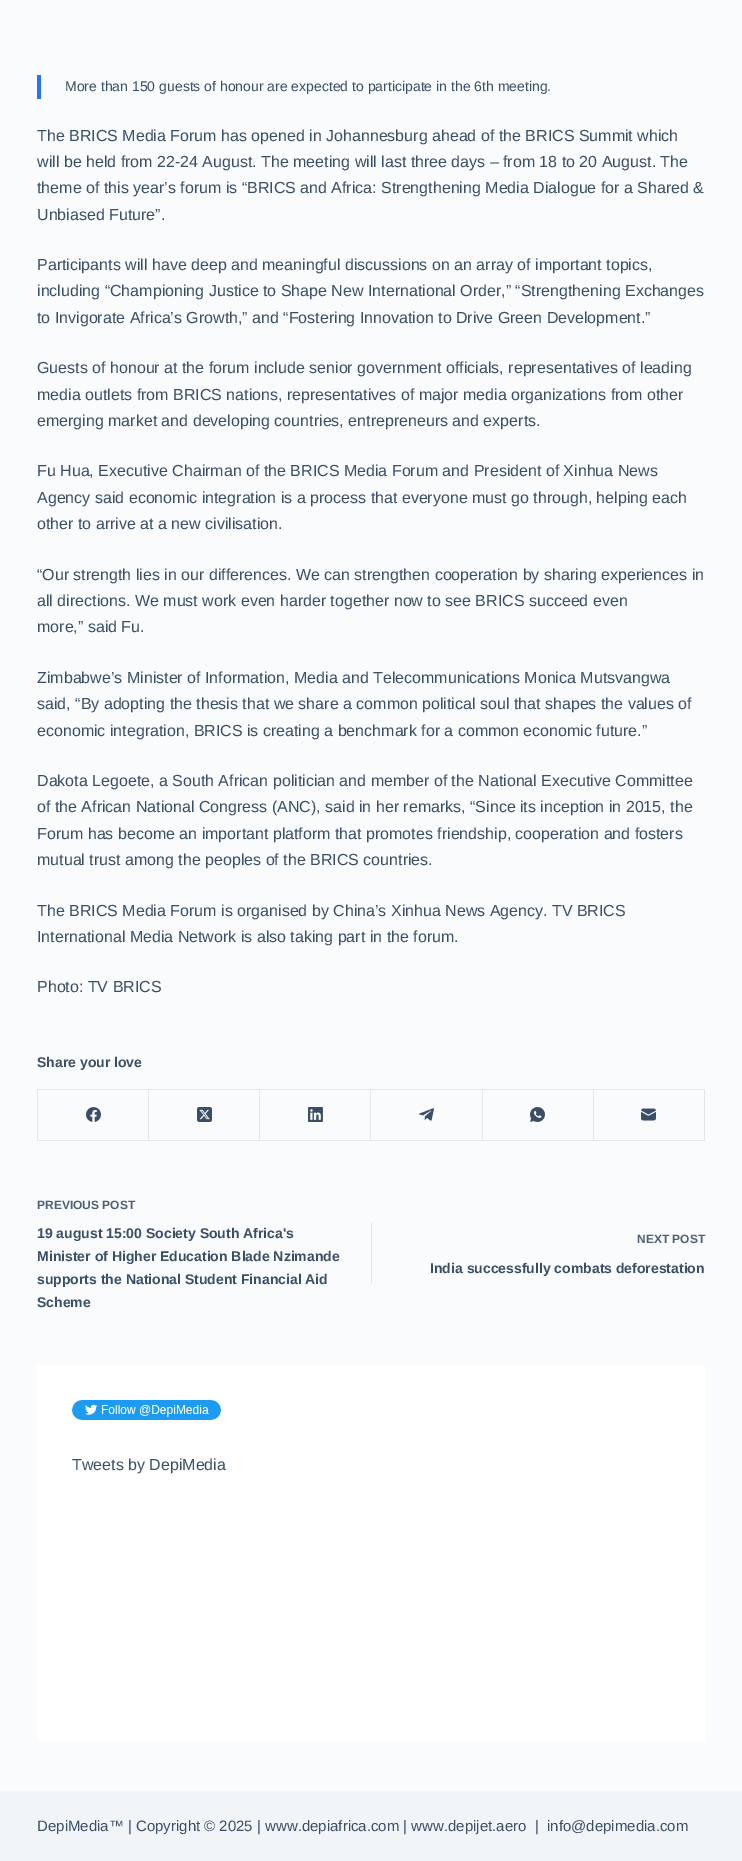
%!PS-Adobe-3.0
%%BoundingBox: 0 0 742 1861
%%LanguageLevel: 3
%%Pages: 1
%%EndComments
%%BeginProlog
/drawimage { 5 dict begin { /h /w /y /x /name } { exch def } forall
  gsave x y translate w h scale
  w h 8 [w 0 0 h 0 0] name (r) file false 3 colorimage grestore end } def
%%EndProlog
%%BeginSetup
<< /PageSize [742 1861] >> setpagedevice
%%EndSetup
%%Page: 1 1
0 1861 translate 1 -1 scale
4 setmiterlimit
0.98 0.984 0.988 setrgbcolor
0 0 742 1861 rectfill
0.157 0.447 0.98 setrgbcolor
37 75 4 24 rectfill
0.882 0.91 0.929 setrgbcolor
37 1089 668 1 rectfill
37 1089 1 52 rectfill
148 1090 1 51 rectfill
38 1140 111 1 rectfill
(images/1.raw) 86 1107 15 15 drawimage
259 1090 1 51 rectfill
149 1140 111 1 rectfill
(images/2.raw) 197 1107 15 15 drawimage
370 1090 1 51 rectfill
260 1140 111 1 rectfill
(images/3.raw) 308 1107 15 15 drawimage
482 1090 1 51 rectfill
371 1140 112 1 rectfill
(images/4.raw) 419 1108 15 13 drawimage
593 1090 1 51 rectfill
483 1140 111 1 rectfill
(images/5.raw) 530 1107 15 15 drawimage
704 1090 1 51 rectfill
594 1140 111 1 rectfill
(images/6.raw) 641 1108 15 13 drawimage
371 1222 1 62 rectfill
1 setgray
37 1365 668 376 rectfill
(images/7.raw) 72 1400 149 20 drawimage
0.949 0.961 0.969 setrgbcolor
0 1791 742 70 rectfill
/LiberationSans-Regular [14 0 0 -14 0 0] selectfont
0.227 0.31 0.4 setrgbcolor
65 91 moveto (More than 150 guests of honour are expected to participate in the 6th meeting.) show
/LiberationSans-Regular [16 0 0 -16 0 0] selectfont
37 141 moveto (The BRICS Media Forum has opened in Johannesburg ahead of the BRICS Summit which) show
37 167 moveto (will be held from 22-24 August. The meeting will last three days – from 18 to 20 August. The) show
37 193 moveto (theme of this year’s forum is “BRICS and Africa: Strengthening Media Dialogue for a Shared &) show
37 220 moveto (Unbiased Future”.) show
37 270 moveto (Participants will have deep and meaningful discussions on an array of important topics,) show
37 296 moveto (including “Championing Justice to Shape New International Order,” “Strengthening Exchanges) show
37 323 moveto (to Invigorate Africa’s Growth,” and “Fostering Innovation to Drive Green Development.”) show
37 373 moveto (Guests of honour at the forum include senior government officials, representatives of leading) show
37 400 moveto (media outlets from BRICS nations, representatives of major media organizations from other) show
37 426 moveto (emerging market and developing countries, entrepreneurs and experts.) show
37 476 moveto (Fu Hua, Executive Chairman of the BRICS Media Forum and President of Xinhua News) show
37 503 moveto (Agency said economic integration is a process that everyone must go through, helping each) show
37 529 moveto (other to arrive at a new civilisation.) show
37 580 moveto (“Our strength lies in our differences. We can strengthen cooperation by sharing experiences in) show
37 606 moveto (all directions. We must work even harder together now to see BRICS succeed even) show
37 632 moveto (more,” said Fu.) show
37 683 moveto (Zimbabwe’s Minister of Information, Media and Telecommunications Monica Mutsvangwa) show
37 709 moveto (said, “By adopting the thesis that we share a common political soul that shapes the values of) show
37 736 moveto (economic integration, BRICS is creating a benchmark for a common economic future.”) show
37 786 moveto (Dakota Legoete, a South African politician and member of the National Executive Committee) show
37 812 moveto (of the African National Congress \(ANC\), said in her remarks, “Since its inception in 2015, the) show
37 839 moveto (Forum has become an important platform that promotes friendship, cooperation and fosters) show
37 865 moveto (mutual trust among the peoples of the BRICS countries.) show
37 916 moveto (The BRICS Media Forum is organised by China’s Xinhua News Agency. TV BRICS) show
37 942 moveto (International Media Network is also taking part in the forum.) show
37 992 moveto (Photo: TV BRICS) show
/LiberationSans-Bold [14 0 0 -14 0 0] selectfont
37 1067 moveto (Share your love) show
/LiberationSans-Bold [12 0 0 -12 0 0] selectfont
0.302 0.376 0.459 setrgbcolor
37 1209 moveto (PREVIOUS POST) show
/LiberationSans-Bold [14 0 0 -14 0 0] selectfont
0.227 0.31 0.4 setrgbcolor
37 1238 moveto (19 august 15:00 Society South Africa's) show
37 1261 moveto (Minister of Higher Education Blade Nzimande) show
37 1284 moveto (supports the National Student Financial Aid) show
37 1307 moveto (Scheme) show
/LiberationSans-Bold [12 0 0 -12 0 0] selectfont
0.302 0.376 0.459 setrgbcolor
637 1243 moveto (NEXT POST) show
/LiberationSans-Bold [14 0 0 -14 0 0] selectfont
0.227 0.31 0.4 setrgbcolor
430 1273 moveto (India successfully combats deforestation) show
/LiberationSans-Regular [16 0 0 -16 0 0] selectfont
72 1470 moveto (Tweets by DepiMedia) show
/LiberationSans-Regular [15 0 0 -15 0 0] selectfont
37 1831 moveto (DepiMedia™ | Copyright © 2025 | www.depiafrica.com | www.depijet.aero) show
535 1831 moveto (|) show
547 1831 moveto (info@depimedia.com) show
showpage
%%EOF
